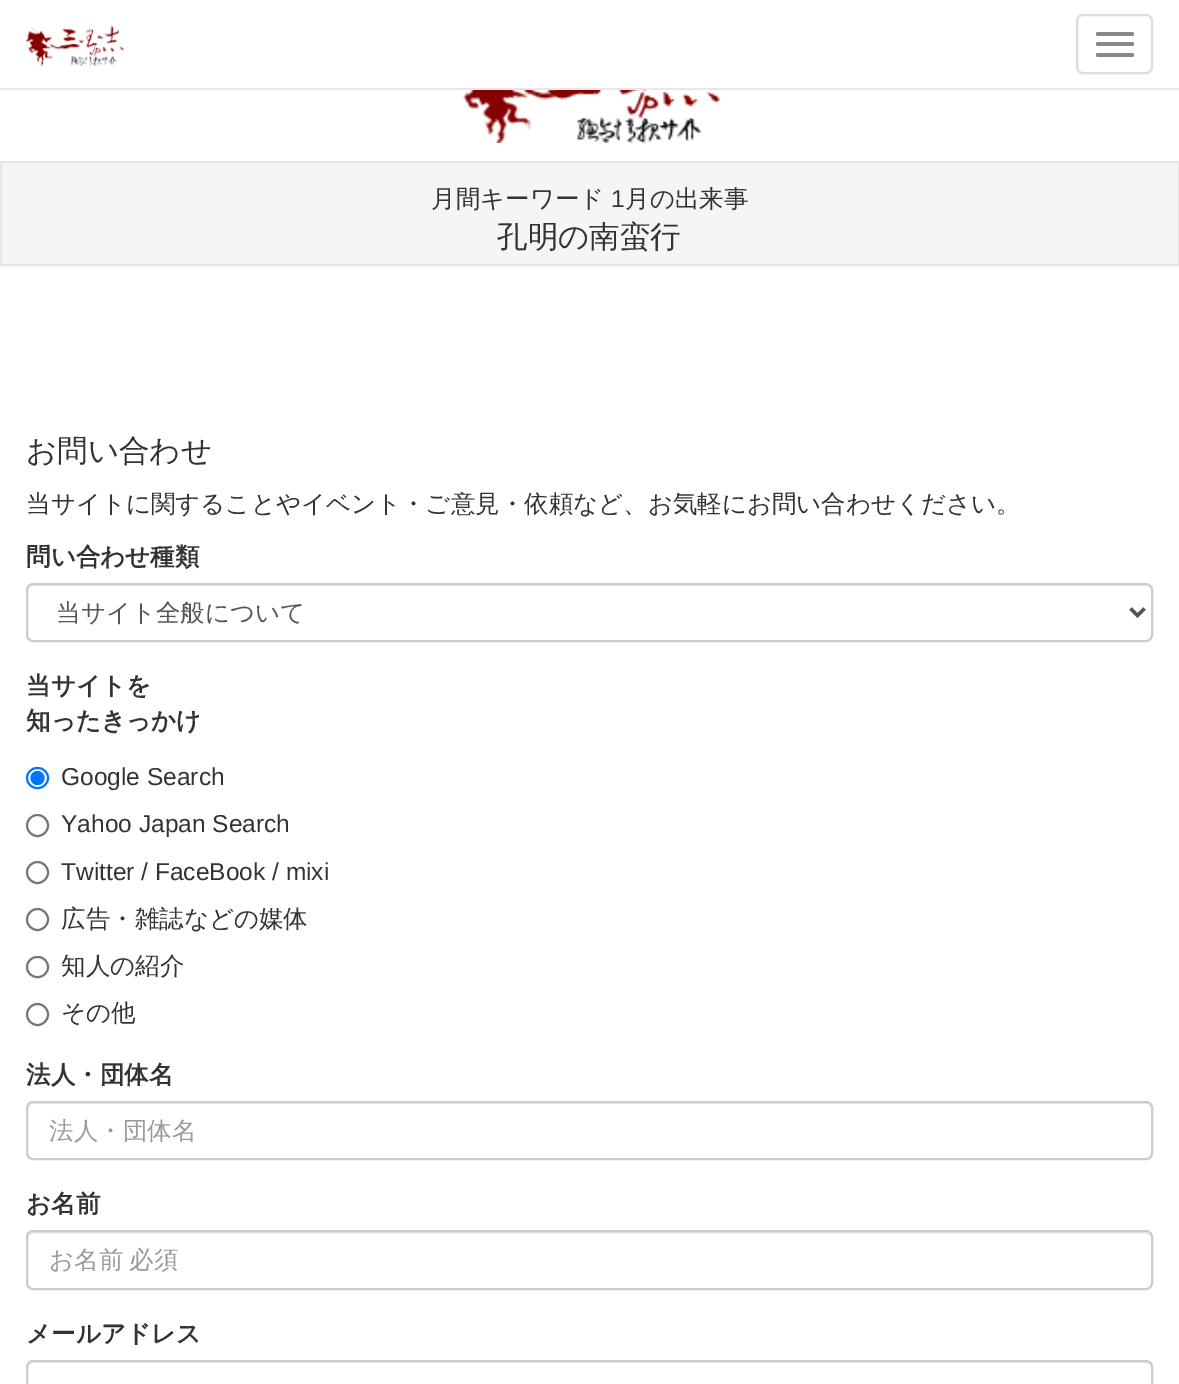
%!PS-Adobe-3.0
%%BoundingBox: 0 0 1179 1384
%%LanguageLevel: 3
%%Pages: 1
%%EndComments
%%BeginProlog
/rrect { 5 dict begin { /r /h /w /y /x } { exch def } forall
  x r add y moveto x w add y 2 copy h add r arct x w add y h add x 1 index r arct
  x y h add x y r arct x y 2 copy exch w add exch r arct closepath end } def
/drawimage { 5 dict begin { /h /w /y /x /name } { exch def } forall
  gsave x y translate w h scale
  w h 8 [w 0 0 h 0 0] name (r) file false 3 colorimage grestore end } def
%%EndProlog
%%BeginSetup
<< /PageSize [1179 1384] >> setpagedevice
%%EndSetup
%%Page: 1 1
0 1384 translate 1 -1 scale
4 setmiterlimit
1 setgray
0 0 1179 1384 rectfill
0.906 setgray
0 88 1179 2 rectfill
(images/1.raw) 26 26 99 41 drawimage
0.867 setgray
2 setlinewidth
1077 15 75 58 6 rrect stroke
0.533 setgray
1096 32 38 4 2 rrect fill
1096 42 38 4 2 rrect fill
1096 53 38 4 2 rrect fill
(images/2.raw) 458 90 262 53 drawimage
0.961 setgray
newpath 1 162 moveto 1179 162 lineto 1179 265 lineto 1 265 lineto closepath gsave fill grestore
0.902 setgray
stroke
0.925 setgray
newpath 33 586 moveto 1146 586 lineto 1149 586 1152 589 1152 592 curveto 1152 590 lineto 1152 587 1150 585 1147 585 curveto 33 585 lineto 30 585 28 587 28 590 curveto 28 592 lineto 28 589 30 586 33 586 curveto closepath fill
0.8 setgray
27 584 1125 57 6 rrect stroke
0.333 setgray
3.5 setlinewidth
newpath 1130.5 608.5 moveto 1137.5 615.5 lineto 1144.5 608.5 lineto stroke
0 0.459 1 setrgbcolor
2 setlinewidth
27 768 21 20 10 rrect stroke
newpath 37.5 778 7 0 360 arc closepath fill
0.463 setgray
newpath 37.5 825.5 10.5 0 360 arc closepath stroke
newpath 37.5 872.5 10.5 0 360 arc closepath stroke
newpath 37.5 919.5 10.5 0 360 arc closepath stroke
27 957 21 20 10 rrect stroke
newpath 37.5 1014.5 10.5 0 360 arc closepath stroke
0.925 setgray
newpath 33 1104 moveto 1146 1104 lineto 1149 1104 1152 1107 1152 1110 curveto 1152 1108 lineto 1152 1105 1150 1103 1147 1103 curveto 33 1103 lineto 30 1103 28 1105 28 1108 curveto 28 1110 lineto 28 1107 30 1104 33 1104 curveto closepath fill
0.8 setgray
27 1102 1125 57 6 rrect stroke
0.925 setgray
newpath 33 1234 moveto 1146 1234 lineto 1149 1234 1152 1236 1152 1239 curveto 1152 1237 lineto 1152 1234 1150 1232 1147 1232 curveto 33 1232 lineto 30 1232 28 1234 28 1237 curveto 28 1239 lineto 28 1236 30 1234 33 1234 curveto closepath fill
0.8 setgray
27 1231 1125 58 6 rrect stroke
0.925 setgray
newpath 33 1363 moveto 1146 1363 lineto 1149 1363 1152 1366 1152 1368 curveto 1152 1365 1150 1362 1147 1362 curveto 33 1362 lineto 30 1362 28 1365 28 1368 curveto 28 1366 30 1363 33 1363 curveto closepath fill
0.8 setgray
27 1361 1125 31 6 rrect stroke
/WenQuanYiZenHei-Medium [24.5 0 0 -24.5 0 0] selectfont
0.2 setgray
431 207 moveto (月間キーワード) show
/LiberationSans-Regular [24.5 0 0 -24.5 0 0] selectfont
611 207 moveto (1) show
/WenQuanYiZenHei-Medium [24.5 0 0 -24.5 0 0] selectfont
625 207 moveto (月の出来事) show
/WenQuanYiZenHei-Medium [30.5 0 0 -30.5 0 0] selectfont
497 247 moveto (孔明の南蛮行) show
26 461 moveto (お問い合わせ) show
/WenQuanYiZenHei-Medium [24.5 0 0 -24.5 0 0] selectfont
26 512 moveto (当サイトに関することやイベント・ご意見・依頼など、お気軽にお問い合わせください。) show
/WenQuanYiZenHei-Bold [24.5 0 0 -24.5 0 0] selectfont
26 565 moveto (問い合わせ種類) show
/WenQuanYiZenHei-Medium [24.5 0 0 -24.5 0 0] selectfont
0.333 setgray
56 621 moveto (当サイト全般について) show
/WenQuanYiZenHei-Bold [24.5 0 0 -24.5 0 0] selectfont
0.2 setgray
26 694 moveto (当サイトを) show
26 729 moveto (知ったきっかけ) show
/LiberationSans-Regular [24.5 0 0 -24.5 0 0] selectfont
61 785 moveto (Google Search) show
61 832 moveto (Yahoo Japan Search) show
61 880 moveto (Twitter / FaceBook / mixi) show
/WenQuanYiZenHei-Medium [24.5 0 0 -24.5 0 0] selectfont
61 927 moveto (広告・雑誌などの媒体) show
61 974 moveto (知人の紹介) show
61 1021 moveto (その他) show
/WenQuanYiZenHei-Bold [24.5 0 0 -24.5 0 0] selectfont
26 1083 moveto (法人・団体名) show
/WenQuanYiZenHei-Medium [24.5 0 0 -24.5 0 0] selectfont
0.6 setgray
49 1139 moveto (法人・団体名) show
/WenQuanYiZenHei-Bold [24.5 0 0 -24.5 0 0] selectfont
0.2 setgray
26 1212 moveto (お名前) show
/WenQuanYiZenHei-Medium [24.5 0 0 -24.5 0 0] selectfont
0.6 setgray
49 1268 moveto -1 0 32 (お名前 必須) widthshow
/WenQuanYiZenHei-Bold [24.5 0 0 -24.5 0 0] selectfont
0.2 setgray
26 1342 moveto (メールアドレス) show
showpage
%%EOF
